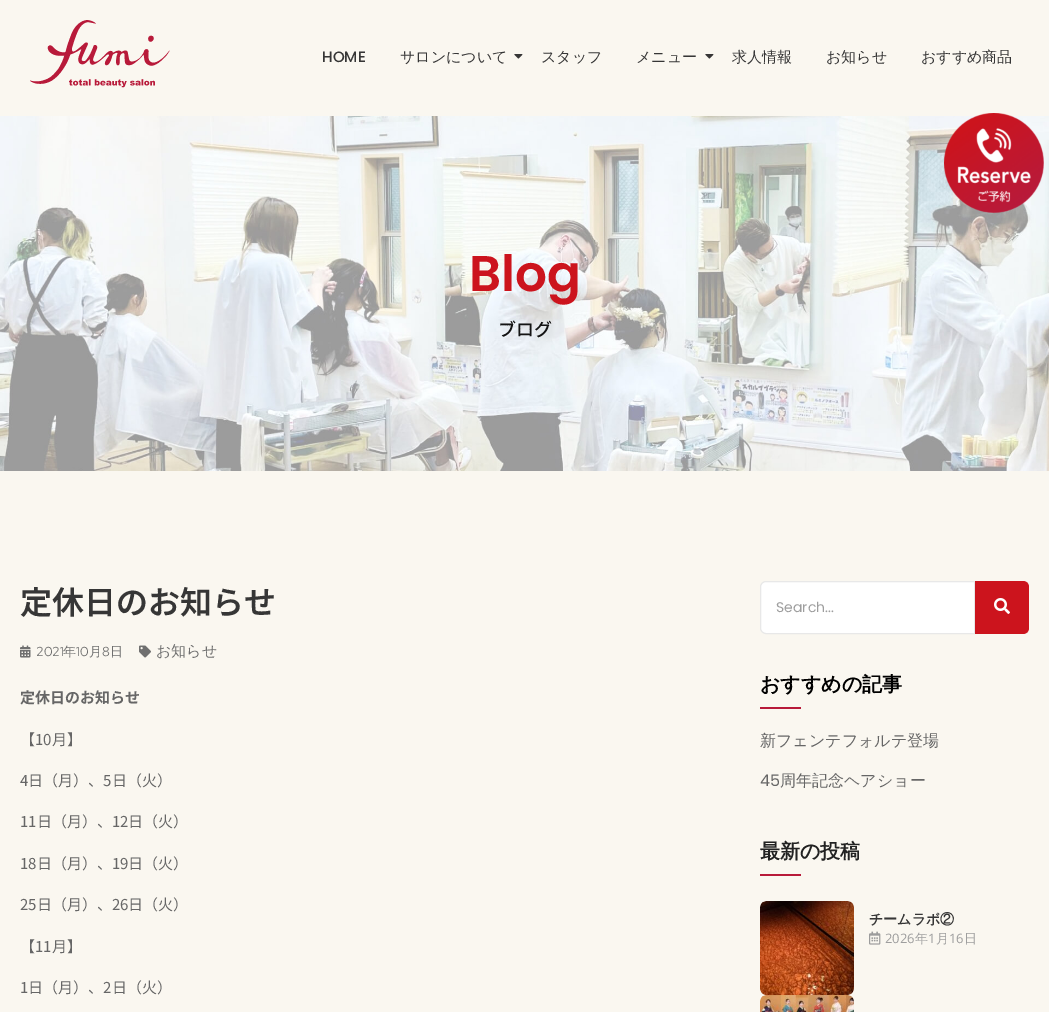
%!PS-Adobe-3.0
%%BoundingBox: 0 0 1049 1012
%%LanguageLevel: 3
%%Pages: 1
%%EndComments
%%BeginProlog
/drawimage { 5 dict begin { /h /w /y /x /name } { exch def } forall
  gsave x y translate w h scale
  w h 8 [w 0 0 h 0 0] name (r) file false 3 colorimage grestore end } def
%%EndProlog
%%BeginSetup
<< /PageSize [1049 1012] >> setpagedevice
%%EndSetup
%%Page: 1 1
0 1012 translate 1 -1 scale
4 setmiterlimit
0.98 0.969 0.941 setrgbcolor
0 0 1049 1012 rectfill
(images/1.raw) 30 20 140 68 drawimage
(images/2.raw) 514 54 9 5 drawimage
(images/2.raw) 705 54 9 5 drawimage
(images/4.raw) 0 116 1049 355 drawimage
(images/3.raw) 944 113 100 100 drawimage
(images/5.raw) 20 645 11 13 drawimage
(images/6.raw) 139 645 12 13 drawimage
1 setgray
newpath 766 581.5 moveto 974.5 581.5 lineto 974.5 633.5 lineto 766 633.5 lineto 763 633.5 760.5 631 760.5 628 curveto 760.5 587 lineto 760.5 584 763 581.5 766 581.5 curveto closepath gsave fill grestore
0.91 setgray
stroke
0.8 0.078 0.114 setrgbcolor
newpath 975 581 moveto 1023 581 lineto 1026.5 581 1029 583.5 1029 587 curveto 1029 628 lineto 1029 631.5 1026.5 634 1023 634 curveto 975 634 lineto closepath fill
(images/7.raw) 994 598 16 16 drawimage
0.722 0.102 0.227 setrgbcolor
760 707 41 2 rectfill
760 874 41 2 rectfill
(images/8.raw) 760 901 94 94 drawimage
(images/9.raw) 869 931 12 14 drawimage
(images/10.raw) 760 995 94 17 drawimage
/Poppins-Medium [15 0 0 -15 0 0] selectfont
0.212 setgray
322 62 moveto (HOME) show
/WenQuanYiZenHei-Medium [15 0 0 -15 0 0] selectfont
400 62 moveto (サロンについて) show
541 62 moveto (スタッフ) show
636 62 moveto (メニュー) show
732 62 moveto (求人情報) show
826 62 moveto (お知らせ) show
921 62 moveto (おすすめ商品) show
/Poppins-SemiBold [50 0 0 -50 0 0] selectfont
0.8 0.078 0.114 setrgbcolor
469 291 moveto (Blog) show
/NotoSansJP-Medium [18 0 0 -18 0 0] selectfont
0.078 setgray
498 336 moveto (ブログ) show
/NotoSansJP-SemiBold [32 0 0 -32 0 0] selectfont
0.212 setgray
20 614 moveto (定休日のお知らせ) show
/RedHatDisplay-Regular [13 0 0 -13 0 0] selectfont
0.435 setgray
36 656 moveto (2021) show
/WenQuanYiZenHei-Medium [13 0 0 -13 0 0] selectfont
63 656 moveto (年) show
/RedHatDisplay-Regular [13 0 0 -13 0 0] selectfont
76 656 moveto (10) show
/WenQuanYiZenHei-Medium [13 0 0 -13 0 0] selectfont
89 656 moveto (月) show
/RedHatDisplay-Regular [13 0 0 -13 0 0] selectfont
102 656 moveto (8) show
/WenQuanYiZenHei-Medium [13 0 0 -13 0 0] selectfont
110 656 moveto (日) show
/WenQuanYiZenHei-Medium [15 0 0 -15 0 0] selectfont
156 656 moveto (お知らせ) show
/NotoSansJP-Bold [15 0 0 -15 0 0] selectfont
0.4 setgray
20 703 moveto (定休日のお知らせ) show
/NotoSansJP-Regular [15 0 0 -15 0 0] selectfont
20 745 moveto (【10月】) show
20 786 moveto (4日（月）、5日（火）) show
20 827 moveto (11日（月）、12日（火）) show
20 869 moveto (18日（月）、19日（火）) show
20 910 moveto (25日（月）、26日（火）) show
20 952 moveto (【11月】) show
20 993 moveto (1日（月）、2日（火）) show
/Poppins-Regular [14 0 0 -14 0 0] selectfont
0.62 setgray
776 612 moveto (Search...) show
/WenQuanYiZenHei-Bold [20 0 0 -20 0 0] selectfont
0 setgray
760 691 moveto (おすすめの記事) show
/WenQuanYiZenHei-Medium [16 0 0 -16 0 0] selectfont
0.4 setgray
760 746 moveto (新フェンテフォルテ登場) show
/Poppins-Regular [16 0 0 -16 0 0] selectfont
760 786 moveto (45) show
/WenQuanYiZenHei-Medium [16 0 0 -16 0 0] selectfont
780 786 moveto (周年記念ヘアショー) show
/WenQuanYiZenHei-Bold [20 0 0 -20 0 0] selectfont
0.133 setgray
760 858 moveto (最新の投稿) show
/WenQuanYiZenHei-Bold [14 0 0 -14 0 0] selectfont
0.212 setgray
869 924 moveto (チームラボ②) show
/OpenSans-Regular [13 0 0 -13 0 0] selectfont
0.62 setgray
885 943 moveto (2026) show
/WenQuanYiZenHei-Medium [13 0 0 -13 0 0] selectfont
915 943 moveto (年) show
/OpenSans-Regular [13 0 0 -13 0 0] selectfont
928 943 moveto (1) show
/WenQuanYiZenHei-Medium [13 0 0 -13 0 0] selectfont
936 943 moveto (月) show
/OpenSans-Regular [13 0 0 -13 0 0] selectfont
949 943 moveto (16) show
/WenQuanYiZenHei-Medium [13 0 0 -13 0 0] selectfont
964 943 moveto (日) show
showpage
%%EOF
